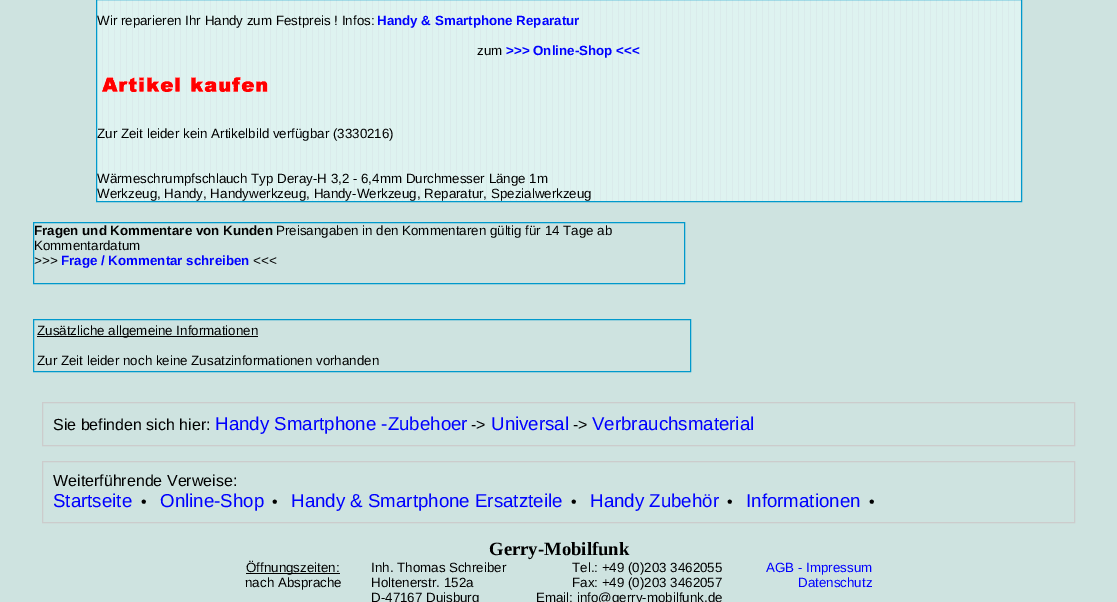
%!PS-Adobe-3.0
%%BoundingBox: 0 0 1117 602
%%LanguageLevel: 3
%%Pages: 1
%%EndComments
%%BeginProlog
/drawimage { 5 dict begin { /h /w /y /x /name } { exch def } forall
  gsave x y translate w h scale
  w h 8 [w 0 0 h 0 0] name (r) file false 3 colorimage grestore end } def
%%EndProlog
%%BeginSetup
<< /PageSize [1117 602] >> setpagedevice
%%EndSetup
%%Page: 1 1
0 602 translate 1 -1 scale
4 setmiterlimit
0.808 0.89 0.878 setrgbcolor
0 0 1117 602 rectfill
(images/1.raw) 97 0 924 201 drawimage
0 0.6 0.8 setrgbcolor
96.5 -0.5 925 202 rectstroke
(images/2.raw) 102 77 166 15 drawimage
33.5 222.5 651 61 rectstroke
33.5 319.5 657 52 rectstroke
0 setgray
37 336 221 1 rectfill
0.8 setgray
42.5 402.5 1032 43 rectstroke
42.5 461.5 1032 61 rectstroke
0 setgray
246 573 94 1 rectfill
/LiberationSans-Regular [13.35 0 0 -13.35 0 0] selectfont
97 25 moveto (Wir reparieren Ihr Handy zum Festpreis ! Infos:) show
/LiberationSans-Bold [13.35 0 0 -13.35 0 0] selectfont
0 0 1 setrgbcolor
377 25 moveto (Handy & Smartphone Reparatur) show
/LiberationSans-Regular [13.35 0 0 -13.35 0 0] selectfont
0 setgray
477 55 moveto (zum) show
/LiberationSans-Bold [13.35 0 0 -13.35 0 0] selectfont
0 0 1 setrgbcolor
506 55 moveto (>>> Online-Shop <<<) show
/LiberationSans-Regular [13.35 0 0 -13.35 0 0] selectfont
0 setgray
97 138 moveto (Zur Zeit leider kein Artikelbild verfügbar \(3330216\)) show
97 183 moveto (Wärmeschrumpfschlauch Typ Deray-H 3,2 - 6,4mm Durchmesser Länge 1m) show
97 198 moveto (Werkzeug, Handy, Handywerkzeug, Handy-Werkzeug, Reparatur, Spezialwerkzeug) show
/LiberationSans-Bold [13.35 0 0 -13.35 0 0] selectfont
34 235 moveto (Fragen und Kommentare von Kunden) show
/LiberationSans-Regular [13.35 0 0 -13.35 0 0] selectfont
276 235 moveto (Preisangaben in den Kommentaren gültig für 14 Tage ab) show
34 250 moveto (Kommentardatum) show
34 265 moveto (>>>) show
/LiberationSans-Bold [13.35 0 0 -13.35 0 0] selectfont
0 0 1 setrgbcolor
61 265 moveto (Frage / Kommentar schreiben) show
/LiberationSans-Regular [13.35 0 0 -13.35 0 0] selectfont
0 setgray
253 265 moveto (<<<) show
37 335 moveto (Zusätzliche allgemeine Informationen) show
37 365 moveto (Zur Zeit leider noch keine Zusatzinformationen vorhanden) show
/LiberationSans-Regular [16 0 0 -16 0 0] selectfont
53 430 moveto (Sie befinden sich hier:) show
/LiberationSans-Regular [18.7 0 0 -18.7 0 0] selectfont
0 0 1 setrgbcolor
215 430 moveto (Handy Smartphone -Zubehoer) show
/LiberationSans-Regular [16 0 0 -16 0 0] selectfont
0 setgray
471 430 moveto (->) show
/LiberationSans-Regular [18.7 0 0 -18.7 0 0] selectfont
0 0 1 setrgbcolor
491 430 moveto (Universal) show
/LiberationSans-Regular [16 0 0 -16 0 0] selectfont
0 setgray
573 430 moveto (->) show
/LiberationSans-Regular [18.7 0 0 -18.7 0 0] selectfont
0 0 1 setrgbcolor
592 430 moveto (Verbrauchsmaterial) show
/LiberationSans-Regular [16 0 0 -16 0 0] selectfont
0 setgray
53 486 moveto (Weiterführende Verweise:) show
/LiberationSans-Regular [18.7 0 0 -18.7 0 0] selectfont
0 0 1 setrgbcolor
53 507 moveto (Startseite) show
/LiberationSans-Regular [16 0 0 -16 0 0] selectfont
0 setgray
141 507 moveto (•) show
/LiberationSans-Regular [18.7 0 0 -18.7 0 0] selectfont
0 0 1 setrgbcolor
160 507 moveto (Online-Shop) show
/LiberationSans-Regular [16 0 0 -16 0 0] selectfont
0 setgray
272 507 moveto (•) show
/LiberationSans-Regular [18.7 0 0 -18.7 0 0] selectfont
0 0 1 setrgbcolor
291 507 moveto (Handy & Smartphone Ersatzteile) show
/LiberationSans-Regular [16 0 0 -16 0 0] selectfont
0 setgray
571 507 moveto (•) show
/LiberationSans-Regular [18.7 0 0 -18.7 0 0] selectfont
0 0 1 setrgbcolor
590 507 moveto (Handy Zubehör) show
/LiberationSans-Regular [16 0 0 -16 0 0] selectfont
0 setgray
727 507 moveto (•) show
/LiberationSans-Regular [18.7 0 0 -18.7 0 0] selectfont
0 0 1 setrgbcolor
746 507 moveto (Informationen) show
/LiberationSans-Regular [16 0 0 -16 0 0] selectfont
0 setgray
869 507 moveto (•) show
/LiberationSerif-Bold [18.7 0 0 -18.7 0 0] selectfont
489 555 moveto (Gerry-Mobilfunk) show
/LiberationSans-Regular [13.35 0 0 -13.35 0 0] selectfont
246 572 moveto (Öffnungszeiten:) show
371 572 moveto (Inh. Thomas Schreiber) show
572 572 moveto (Tel.: +49 \(0\)203 3462055) show
0 0 1 setrgbcolor
766 572 moveto (AGB - Impressum) show
0 setgray
245 587 moveto (nach Absprache) show
371 587 moveto (Holtenerstr. 152a) show
572 587 moveto (Fax: +49 \(0\)203 3462057) show
0 0 1 setrgbcolor
798 587 moveto (Datenschutz) show
0 setgray
371 602 moveto (D-47167 Duisburg) show
536 602 moveto (Email: info@gerry-mobilfunk.de) show
showpage
%%EOF
